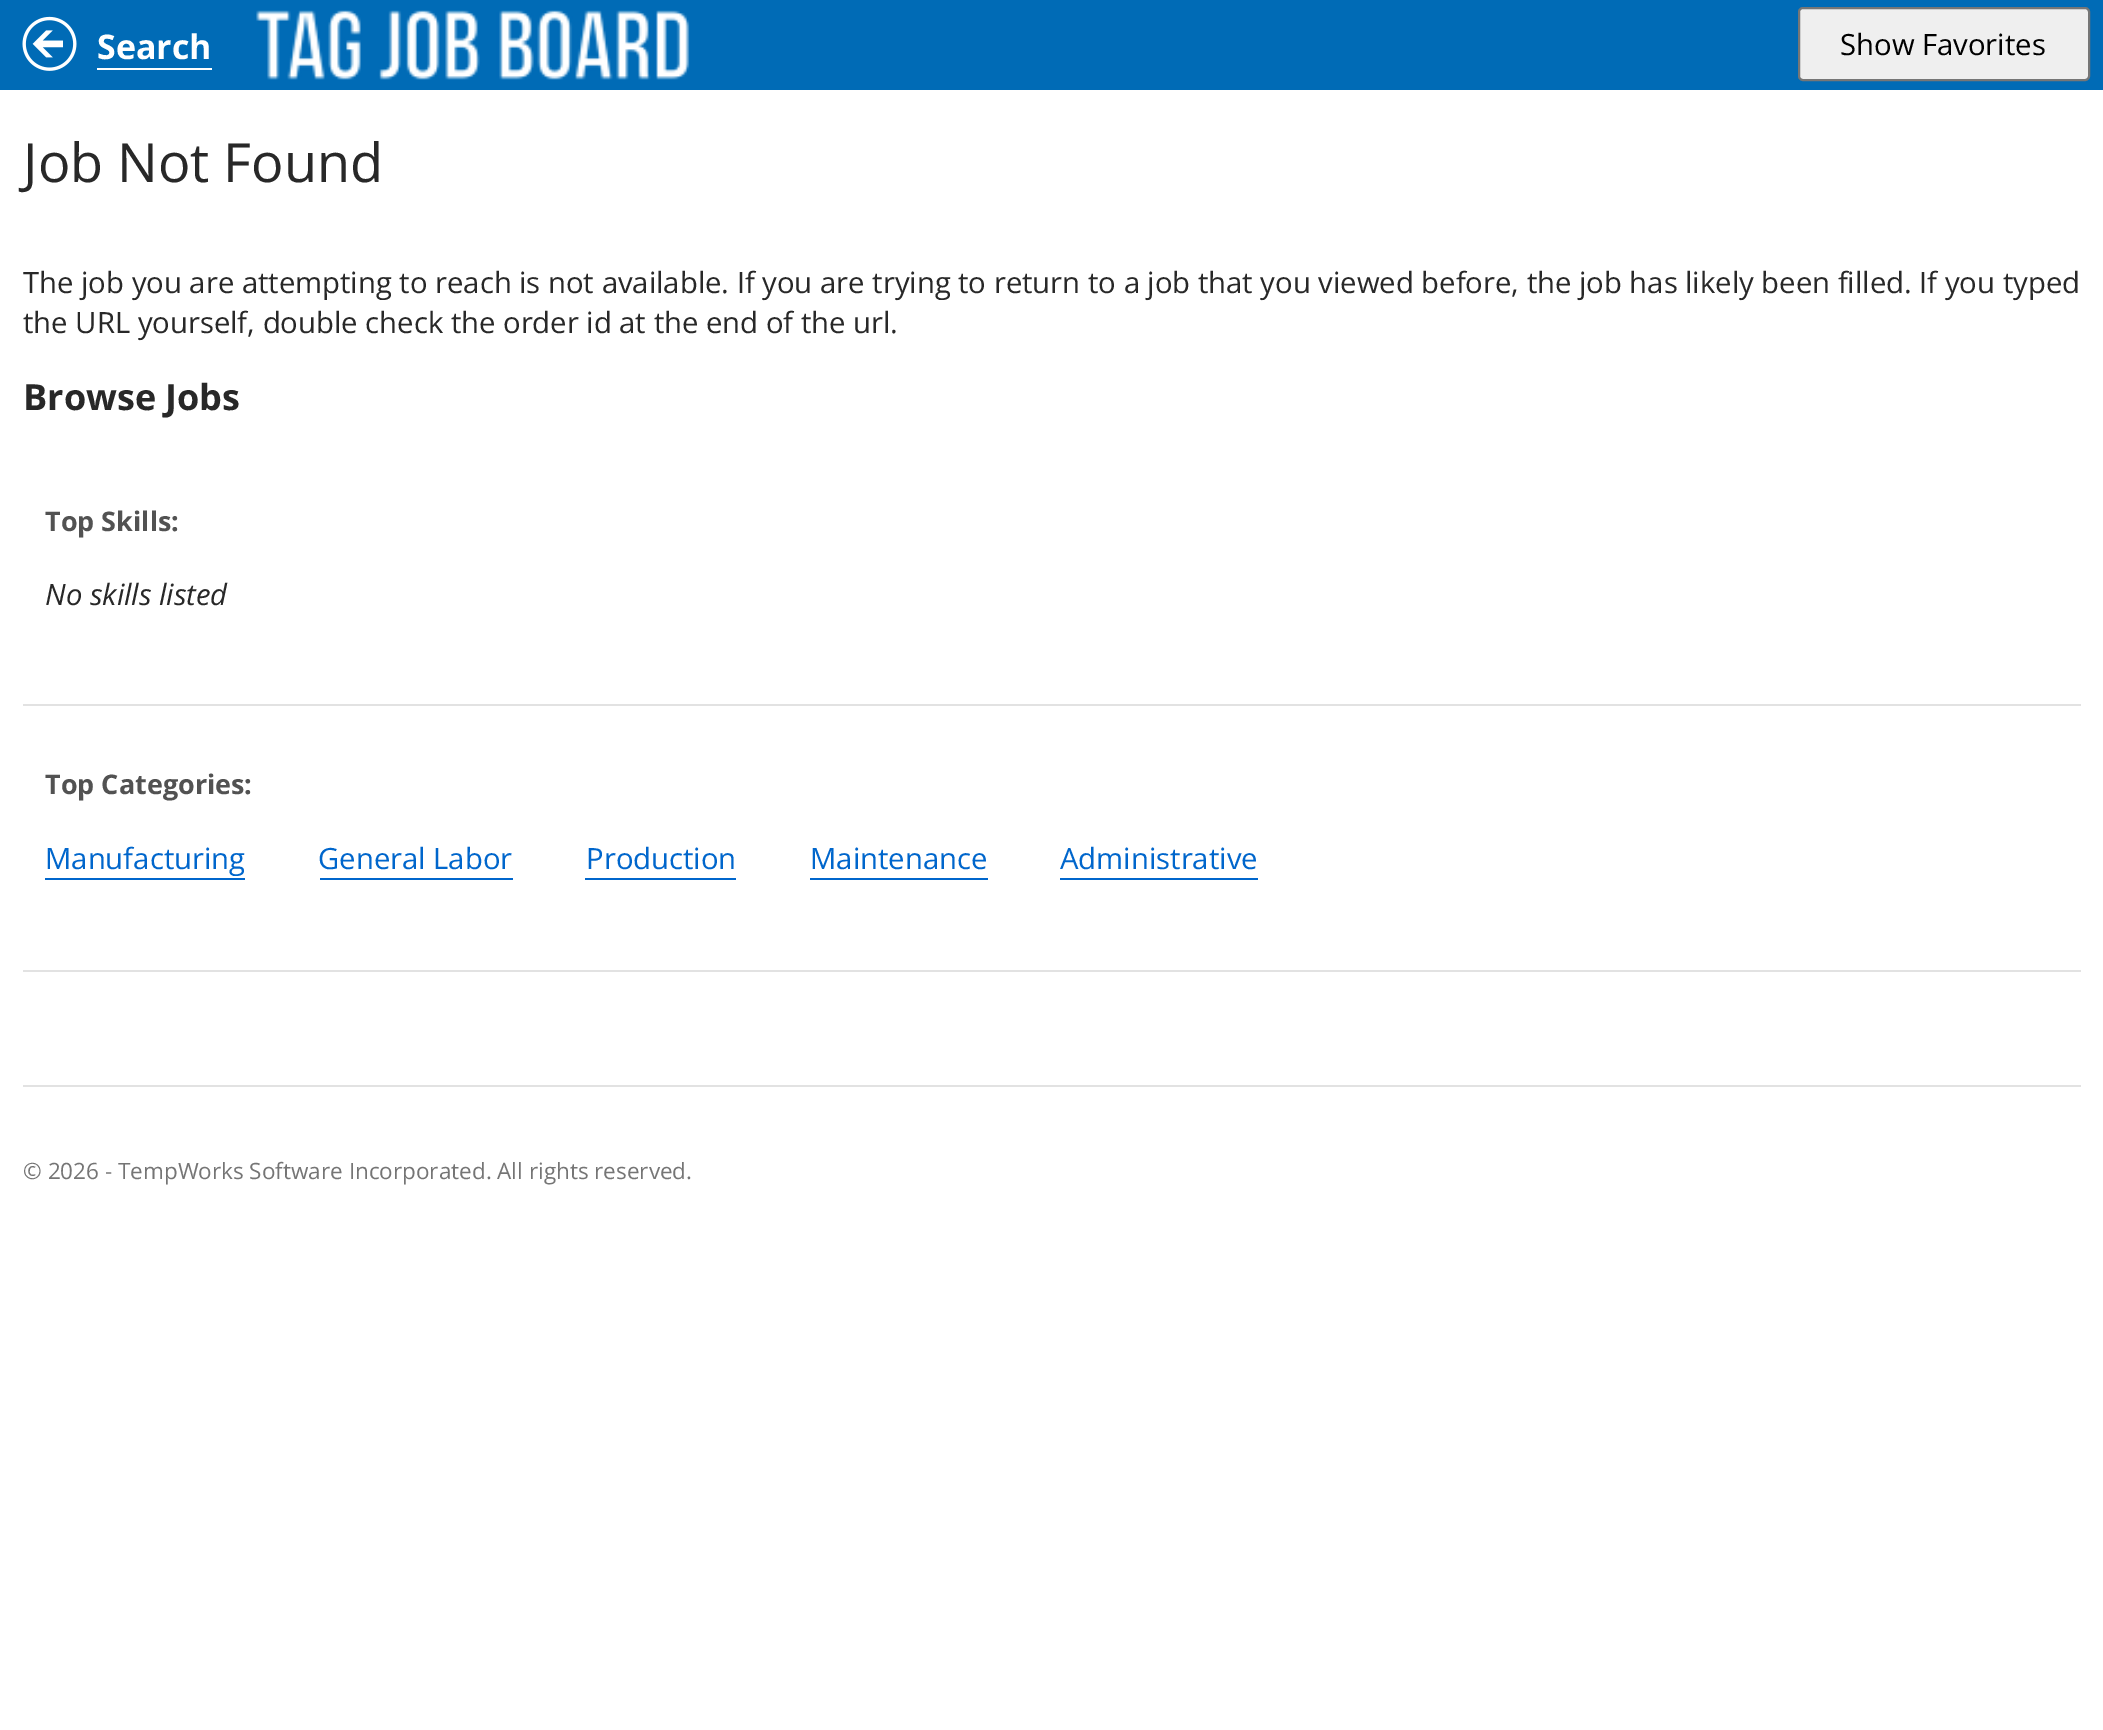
%!PS-Adobe-3.0
%%BoundingBox: 0 0 2103 1730
%%LanguageLevel: 3
%%Pages: 1
%%EndComments
%%BeginProlog
/rrect { 5 dict begin { /r /h /w /y /x } { exch def } forall
  x r add y moveto x w add y 2 copy h add r arct x w add y h add x 1 index r arct
  x y h add x y r arct x y 2 copy exch w add exch r arct closepath end } def
/drawimage { 5 dict begin { /h /w /y /x /name } { exch def } forall
  gsave x y translate w h scale
  w h 8 [w 0 0 h 0 0] name (r) file false 3 colorimage grestore end } def
%%EndProlog
%%BeginSetup
<< /PageSize [2103 1730] >> setpagedevice
%%EndSetup
%%Page: 1 1
0 1730 translate 1 -1 scale
4 setmiterlimit
1 setgray
0 0 2103 1730 rectfill
0 0.42 0.714 setrgbcolor
0 0 2103 90 rectfill
(images/1.raw) 22 16 55 55 drawimage
1 setgray
97 68 115 2 rectfill
(images/2.raw) 256 10 434 70 drawimage
0.937 setgray
1799 8 290 72 4 rrect gsave fill grestore
0.463 setgray
2 setlinewidth
stroke
0.886 setgray
23 704 2058 2 rectfill
23 970 2058 2 rectfill
0 0.4 0.8 setrgbcolor
45 878 200 2 rectfill
320 878 193 2 rectfill
585 878 151 2 rectfill
810 878 178 2 rectfill
1060 878 198 2 rectfill
0.886 setgray
23 1085 2058 2 rectfill
/OpenSans-Bold [34 0 0 -34 0 0] selectfont
1 setgray
97 59 moveto (Search) show
/OpenSans-Regular [29.25 0 0 -29.25 0 0] selectfont
0 setgray
1840 55 moveto (Show Favorites) show
/OpenSans-Regular [54 0 0 -54 0 0] selectfont
0.157 setgray
23 182 moveto (Job Not Found) show
/OpenSans-Regular [29.25 0 0 -29.25 0 0] selectfont
23 293 moveto (The job you are attempting to reach is not available. If you are trying to return to a job that you viewed before, the job has likely been filled. If you typed) show
23 333 moveto (the URL yourself, double check the order id at the end of the url.) show
/OpenSans-Bold [36 0 0 -36 0 0] selectfont
23 410 moveto (Browse Jobs) show
/OpenSans-Bold [27 0 0 -27 0 0] selectfont
0.322 setgray
45 531 moveto (Top Skills:) show
/OpenSans-Italic [29.25 0 0 -29.25 0 0] selectfont
0.157 setgray
45 605 moveto (No skills listed) show
/OpenSans-Bold [27 0 0 -27 0 0] selectfont
0.322 setgray
45 794 moveto (Top Categories:) show
/OpenSans-Regular [29.25 0 0 -29.25 0 0] selectfont
0 0.4 0.8 setrgbcolor
45 869 moveto (Manufacturing) show
318 869 moveto (General Labor) show
586 869 moveto (Production) show
810 869 moveto (Maintenance) show
1060 869 moveto (Administrative) show
/OpenSans-Regular [22.5 0 0 -22.5 0 0] selectfont
0.459 setgray
23 1179 moveto (© 2026 - TempWorks Software Incorporated. All rights reserved.) show
showpage
%%EOF
